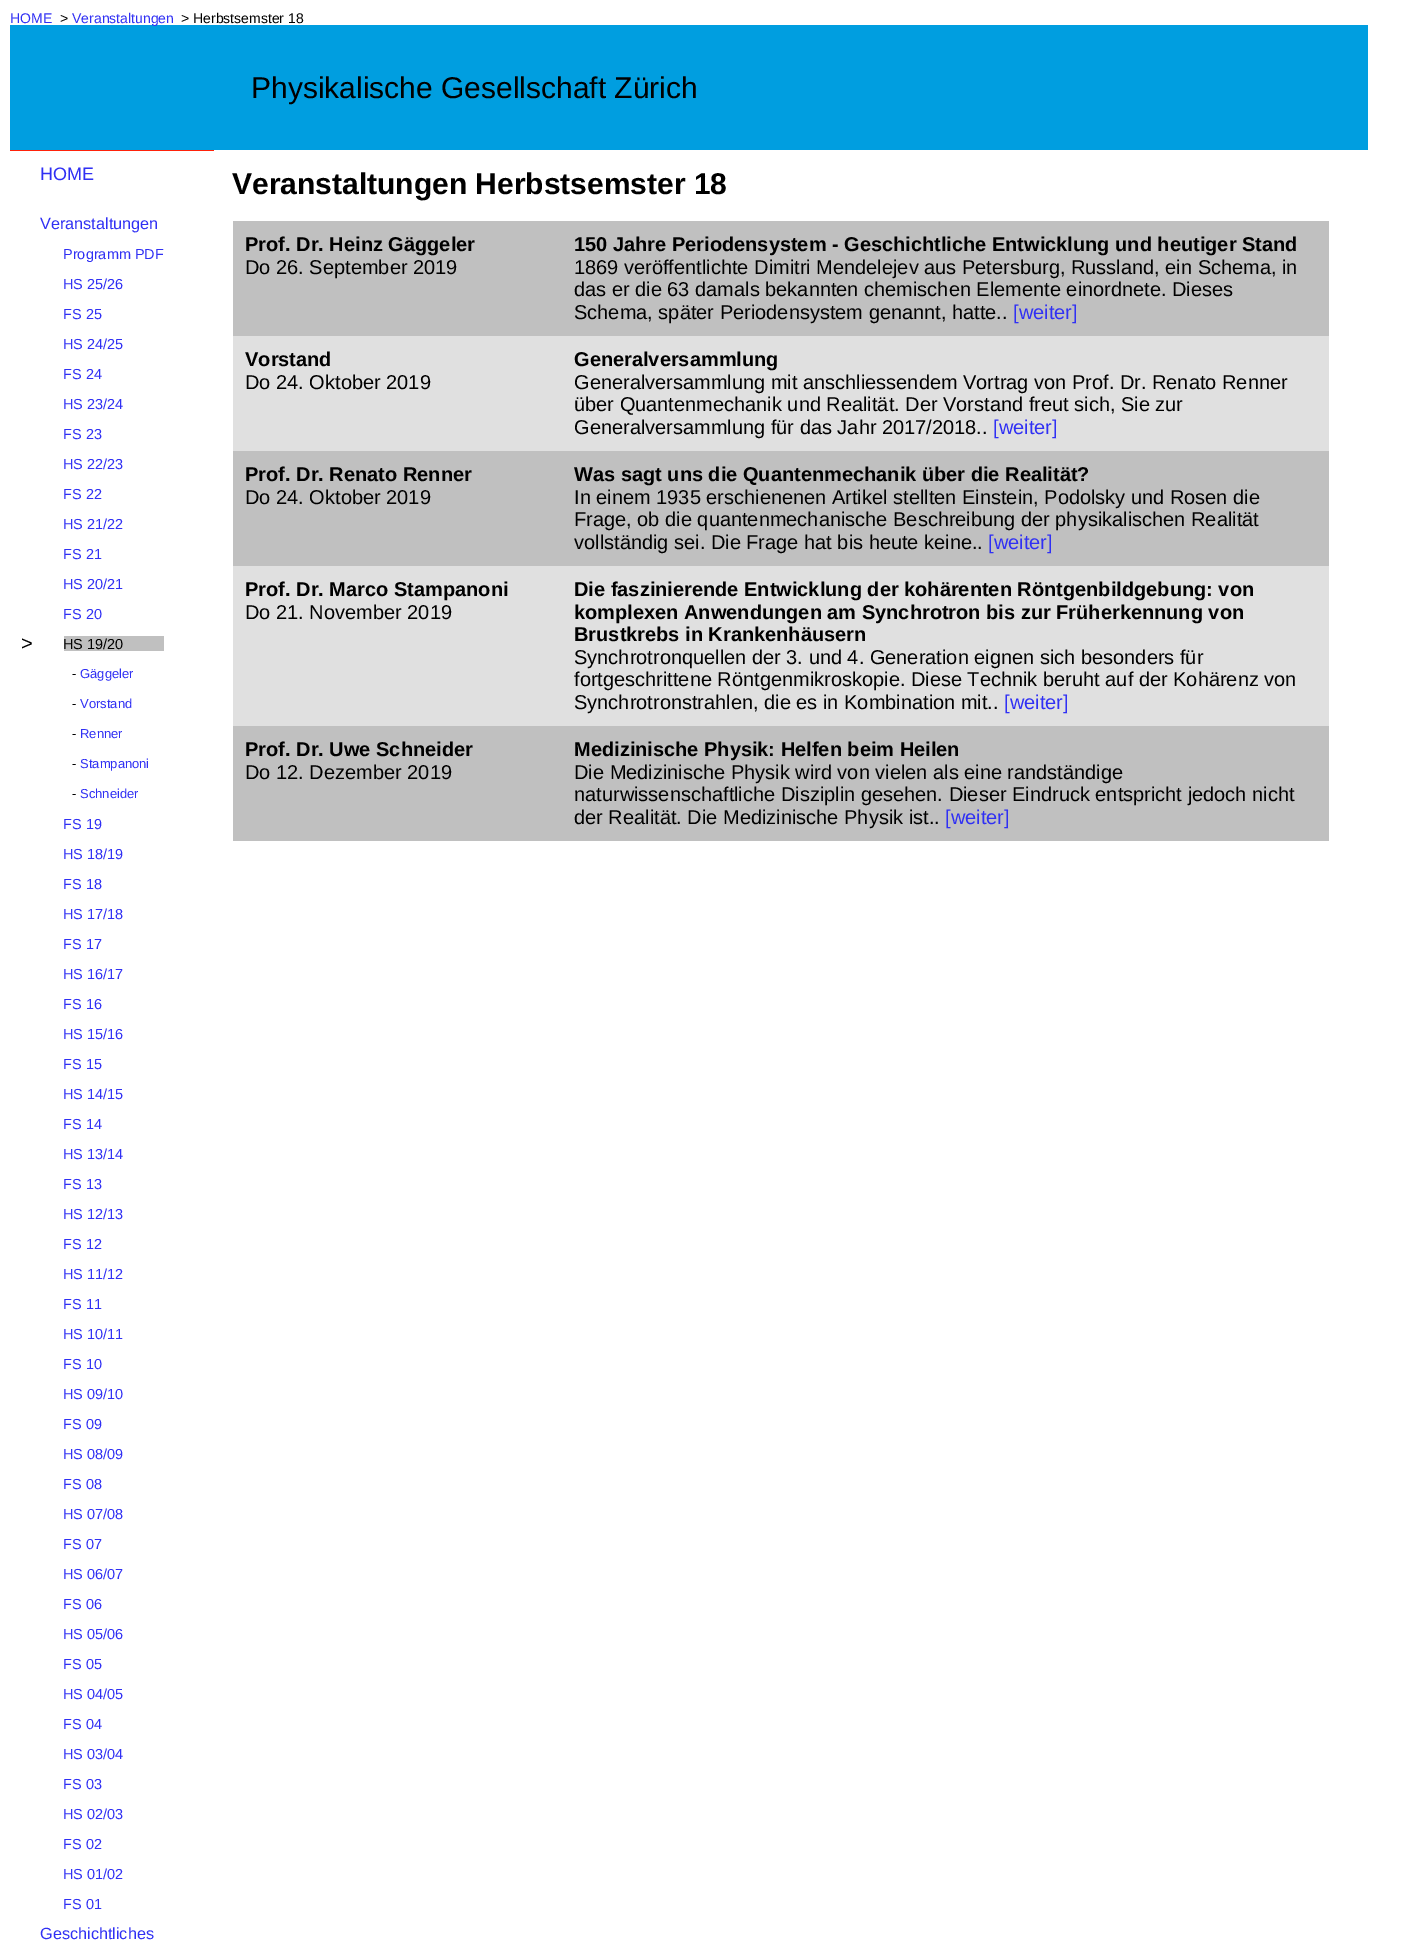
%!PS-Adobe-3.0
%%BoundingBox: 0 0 1405 1949
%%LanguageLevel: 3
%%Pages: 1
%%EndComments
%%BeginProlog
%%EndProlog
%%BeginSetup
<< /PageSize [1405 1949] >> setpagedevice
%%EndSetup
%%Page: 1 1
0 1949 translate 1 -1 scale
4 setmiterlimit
1 setgray
0 0 1405 1949 rectfill
0 0.62 0.878 setrgbcolor
10 25 1358 125 rectfill
1 0.133 0.039 setrgbcolor
10 150 204 1 rectfill
0.753 setgray
64 636 100 15 rectfill
233 221 1096 115 rectfill
0.878 setgray
233 336 1096 115 rectfill
0.753 setgray
233 451 1096 115 rectfill
0.878 setgray
233 566 1096 160 rectfill
0.753 setgray
233 726 1096 115 rectfill
/LiberationSans-Regular [14 0 0 -14 0 0] selectfont
0.188 0.188 0.957 setrgbcolor
10 23 moveto (HOME) show
0 setgray
60 23 moveto (>) show
0.188 0.188 0.957 setrgbcolor
72 23 moveto (Veranstaltungen) show
0 setgray
181 23 moveto (> Herbstsemster 18) show
/LiberationSans-Regular [30 0 0 -30 0 0] selectfont
251 98 moveto (Physikalische Gesellschaft Zürich) show
/LiberationSans-Regular [18 0 0 -18 0 0] selectfont
0.188 0.188 0.957 setrgbcolor
40 180 moveto (HOME) show
/LiberationSans-Regular [16.25 0 0 -16.25 0 0] selectfont
40 229 moveto (Veranstaltungen) show
/LiberationSans-Regular [14.5 0 0 -14.5 0 0] selectfont
63 259 moveto (Programm PDF) show
63 289 moveto (HS 25/26) show
63 319 moveto (FS 25) show
63 349 moveto (HS 24/25) show
63 379 moveto (FS 24) show
63 409 moveto (HS 23/24) show
63 439 moveto (FS 23) show
63 469 moveto (HS 22/23) show
63 499 moveto (FS 22) show
63 529 moveto (HS 21/22) show
63 559 moveto (FS 21) show
63 589 moveto (HS 20/21) show
63 619 moveto (FS 20) show
/LiberationSans-Regular [20 0 0 -20 0 0] selectfont
0 setgray
21 650 moveto (>) show
/LiberationSans-Regular [14.5 0 0 -14.5 0 0] selectfont
63 649 moveto (HS 19/20) show
/LiberationSans-Regular [13 0 0 -13 0 0] selectfont
72 678 moveto (-) show
0.188 0.188 0.957 setrgbcolor
80 678 moveto (Gäggeler) show
0 setgray
72 708 moveto (-) show
0.188 0.188 0.957 setrgbcolor
80 708 moveto (Vorstand) show
0 setgray
72 738 moveto (-) show
0.188 0.188 0.957 setrgbcolor
80 738 moveto (Renner) show
0 setgray
72 768 moveto (-) show
0.188 0.188 0.957 setrgbcolor
80 768 moveto (Stampanoni) show
0 setgray
72 798 moveto (-) show
0.188 0.188 0.957 setrgbcolor
80 798 moveto (Schneider) show
/LiberationSans-Regular [14.5 0 0 -14.5 0 0] selectfont
63 829 moveto (FS 19) show
63 859 moveto (HS 18/19) show
63 889 moveto (FS 18) show
63 919 moveto (HS 17/18) show
63 949 moveto (FS 17) show
63 979 moveto (HS 16/17) show
63 1009 moveto (FS 16) show
63 1039 moveto (HS 15/16) show
63 1069 moveto (FS 15) show
63 1099 moveto (HS 14/15) show
63 1129 moveto (FS 14) show
63 1159 moveto (HS 13/14) show
63 1189 moveto (FS 13) show
63 1219 moveto (HS 12/13) show
63 1249 moveto (FS 12) show
63 1279 moveto (HS 11/12) show
63 1309 moveto (FS 11) show
63 1339 moveto (HS 10/11) show
63 1369 moveto (FS 10) show
63 1399 moveto (HS 09/10) show
63 1429 moveto (FS 09) show
63 1459 moveto (HS 08/09) show
63 1489 moveto (FS 08) show
63 1519 moveto (HS 07/08) show
63 1549 moveto (FS 07) show
63 1579 moveto (HS 06/07) show
63 1609 moveto (FS 06) show
63 1639 moveto (HS 05/06) show
63 1669 moveto (FS 05) show
63 1699 moveto (HS 04/05) show
63 1729 moveto (FS 04) show
63 1759 moveto (HS 03/04) show
63 1789 moveto (FS 03) show
63 1819 moveto (HS 02/03) show
63 1849 moveto (FS 02) show
63 1879 moveto (HS 01/02) show
63 1909 moveto (FS 01) show
/LiberationSans-Regular [16.25 0 0 -16.25 0 0] selectfont
40 1939 moveto (Geschichtliches) show
/LiberationSans-Bold [30 0 0 -30 0 0] selectfont
0 setgray
232 194 moveto (Veranstaltungen Herbstsemster 18) show
/LiberationSans-Bold [20 0 0 -20 0 0] selectfont
245 251 moveto (Prof. Dr. Heinz Gäggeler) show
/LiberationSans-Regular [20 0 0 -20 0 0] selectfont
245 274 moveto (Do 26. September 2019) show
/LiberationSans-Bold [20 0 0 -20 0 0] selectfont
574 251 moveto (150 Jahre Periodensystem - Geschichtliche Entwicklung und heutiger Stand) show
/LiberationSans-Regular [20 0 0 -20 0 0] selectfont
574 274 moveto (1869 veröffentlichte Dimitri Mendelejev aus Petersburg, Russland, ein Schema, in) show
574 296 moveto (das er die 63 damals bekannten chemischen Elemente einordnete. Dieses) show
574 319 moveto (Schema, später Periodensystem genannt, hatte..) show
0.188 0.188 0.957 setrgbcolor
1013 319 moveto ([weiter]) show
/LiberationSans-Bold [20 0 0 -20 0 0] selectfont
0 setgray
245 366 moveto (Vorstand) show
/LiberationSans-Regular [20 0 0 -20 0 0] selectfont
245 389 moveto (Do 24. Oktober 2019) show
/LiberationSans-Bold [20 0 0 -20 0 0] selectfont
574 366 moveto (Generalversammlung) show
/LiberationSans-Regular [20 0 0 -20 0 0] selectfont
574 389 moveto (Generalversammlung mit anschliessendem Vortrag von Prof. Dr. Renato Renner) show
574 411 moveto (über Quantenmechanik und Realität. Der Vorstand freut sich, Sie zur) show
574 434 moveto (Generalversammlung für das Jahr 2017/2018..) show
0.188 0.188 0.957 setrgbcolor
993 434 moveto ([weiter]) show
/LiberationSans-Bold [20 0 0 -20 0 0] selectfont
0 setgray
245 481 moveto (Prof. Dr. Renato Renner) show
/LiberationSans-Regular [20 0 0 -20 0 0] selectfont
245 504 moveto (Do 24. Oktober 2019) show
/LiberationSans-Bold [20 0 0 -20 0 0] selectfont
574 481 moveto (Was sagt uns die Quantenmechanik über die Realität?) show
/LiberationSans-Regular [20 0 0 -20 0 0] selectfont
574 504 moveto (In einem 1935 erschienenen Artikel stellten Einstein, Podolsky und Rosen die) show
574 526 moveto (Frage, ob die quantenmechanische Beschreibung der physikalischen Realität) show
574 549 moveto (vollständig sei. Die Frage hat bis heute keine..) show
0.188 0.188 0.957 setrgbcolor
988 549 moveto ([weiter]) show
/LiberationSans-Bold [20 0 0 -20 0 0] selectfont
0 setgray
245 596 moveto (Prof. Dr. Marco Stampanoni) show
/LiberationSans-Regular [20 0 0 -20 0 0] selectfont
245 619 moveto (Do 21. November 2019) show
/LiberationSans-Bold [20 0 0 -20 0 0] selectfont
574 596 moveto (Die faszinierende Entwicklung der kohärenten Röntgenbildgebung: von) show
574 619 moveto (komplexen Anwendungen am Synchrotron bis zur Früherkennung von) show
574 641 moveto (Brustkrebs in Krankenhäusern) show
/LiberationSans-Regular [20 0 0 -20 0 0] selectfont
574 664 moveto (Synchrotronquellen der 3. und 4. Generation eignen sich besonders für) show
574 686 moveto (fortgeschrittene Röntgenmikroskopie. Diese Technik beruht auf der Kohärenz von) show
574 709 moveto (Synchrotronstrahlen, die es in Kombination mit..) show
0.188 0.188 0.957 setrgbcolor
1004 709 moveto ([weiter]) show
/LiberationSans-Bold [20 0 0 -20 0 0] selectfont
0 setgray
245 756 moveto (Prof. Dr. Uwe Schneider) show
/LiberationSans-Regular [20 0 0 -20 0 0] selectfont
245 779 moveto (Do 12. Dezember 2019) show
/LiberationSans-Bold [20 0 0 -20 0 0] selectfont
574 756 moveto (Medizinische Physik: Helfen beim Heilen) show
/LiberationSans-Regular [20 0 0 -20 0 0] selectfont
574 779 moveto (Die Medizinische Physik wird von vielen als eine randständige) show
574 801 moveto (naturwissenschaftliche Disziplin gesehen. Dieser Eindruck entspricht jedoch nicht) show
574 824 moveto (der Realität. Die Medizinische Physik ist..) show
0.188 0.188 0.957 setrgbcolor
945 824 moveto ([weiter]) show
showpage
%%EOF
